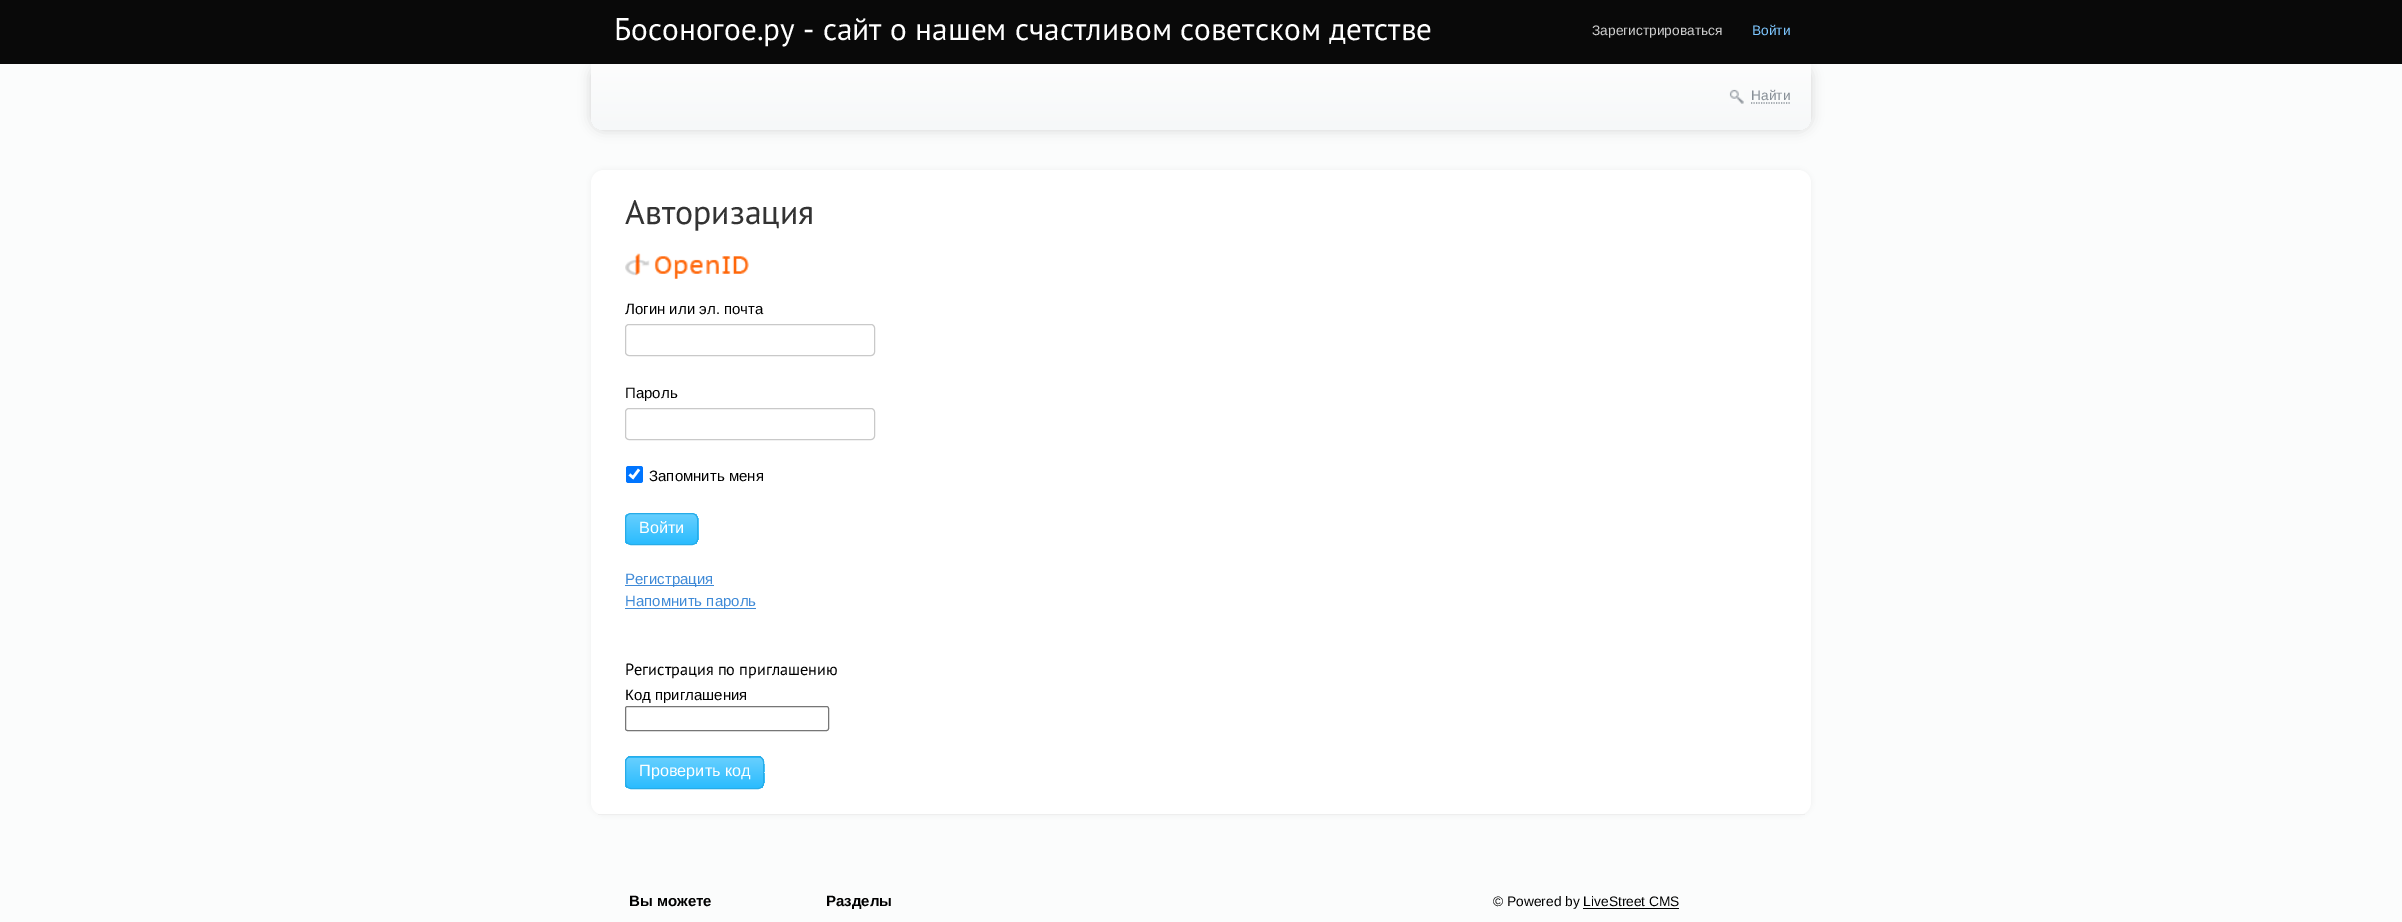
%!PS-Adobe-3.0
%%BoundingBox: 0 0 2402 922
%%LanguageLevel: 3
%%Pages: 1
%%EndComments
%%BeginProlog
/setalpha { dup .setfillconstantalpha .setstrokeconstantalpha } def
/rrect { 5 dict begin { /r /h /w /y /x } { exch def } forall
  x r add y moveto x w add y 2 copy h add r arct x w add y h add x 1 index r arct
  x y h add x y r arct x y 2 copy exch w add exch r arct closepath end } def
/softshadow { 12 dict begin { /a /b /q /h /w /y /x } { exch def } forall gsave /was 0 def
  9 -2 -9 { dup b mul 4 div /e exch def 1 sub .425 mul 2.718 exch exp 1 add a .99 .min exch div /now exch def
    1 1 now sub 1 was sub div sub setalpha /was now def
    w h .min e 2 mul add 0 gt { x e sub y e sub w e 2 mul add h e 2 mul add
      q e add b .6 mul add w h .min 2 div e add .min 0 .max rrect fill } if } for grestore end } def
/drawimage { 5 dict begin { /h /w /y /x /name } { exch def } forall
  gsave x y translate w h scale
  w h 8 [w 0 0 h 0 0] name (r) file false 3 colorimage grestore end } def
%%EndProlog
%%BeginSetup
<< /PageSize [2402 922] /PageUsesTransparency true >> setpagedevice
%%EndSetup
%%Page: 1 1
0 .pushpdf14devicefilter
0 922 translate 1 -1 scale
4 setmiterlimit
0.984 0.988 0.988 setrgbcolor
0 0 2402 922 rectfill
0.035 setgray
0 0 2402 64 rectfill
0 setgray
591 64 1220 66 13 6 0.15 softshadow
gsave newpath 591 64 moveto 1811 64 lineto 1811 117 lineto 1811 124 1805 130 1798 130 curveto 604 130 lineto 597 130 591 124 591 117 curveto closepath clip newpath
<< /ShadingType 2 /ColorSpace /DeviceRGB /Coords [1201 64 1201 130] /Extend [true true] /Function << /FunctionType 2 /Domain [0 1] /C0 [0.992 0.992 0.992] /C1 [0.965 0.973 0.976] /N 1 >> >> shfill grestore
(images/1.raw) 1729 89 15 15 drawimage
0.529 0.557 0.588 setrgbcolor
1.2 setlinewidth
[1.25 1.25] 0 setdash
newpath 1751 103 moveto 1790 103 lineto stroke
0 setgray
591 170 1220 645 13 3 0.05 softshadow
1 setgray
591 170 1220 645 13 rrect fill
0.933 setgray
598 814 1207 1 rectfill
(images/2.raw) 625 253 124 26 drawimage
0.788 setgray
1 setlinewidth
[] 0 setdash
625.5 324.5 249 31 3.5 rrect stroke
625.5 408.5 249 31 3.5 rrect stroke
0 0.459 1 setrgbcolor
626 466 17 17 2.5 rrect fill
1 setgray
2.6 setlinewidth
newpath 629.5 474.5 moveto 633 477.5 lineto 639 469.5 lineto stroke
gsave newpath 625 519 moveto 625 539 lineto 625 541 626 543 628 544 curveto 695 544 lineto 700 541 698 533 698 529 curveto 698 525 700 517 695 514 curveto 628 514 lineto 626 515 625 517 625 519 curveto closepath clip newpath
<< /ShadingType 2 /ColorSpace /DeviceRGB /Coords [661 514 661 544] /Extend [true true] /Function << /FunctionType 2 /Domain [0 1] /C0 [0.4 0.812 1] /C1 [0.165 0.737 0.996] /N 1 >> >> shfill grestore
0.153 0.675 0.91 setrgbcolor
1 setlinewidth
625.5 513.5 72 31 5.5 rrect stroke
0.247 0.541 0.843 setrgbcolor
625 585 89 1 rectfill
625 608 131 1 rectfill
0.463 setgray
625.5 706.5 203 24 2 rrect stroke
gsave newpath 631 756 moveto 629 756 628 757 627 758 curveto 762 758 lineto 761 757 760 756 758 756 curveto closepath clip newpath
<< /ShadingType 2 /ColorSpace /DeviceRGB /Coords [694 728 694 758] /Extend [true true] /Function << /FunctionType 2 /Domain [0 1] /C0 [0.4 0.812 1] /C1 [0.165 0.737 0.996] /N 1 >> >> shfill grestore
gsave newpath 625 762 moveto 625 783 lineto 625 785 626 787 628 788 curveto 761 788 lineto 766 785 764 777 764 772 curveto 764 769 765 761 762 758 curveto 627 758 lineto 626 759 625 760 625 762 curveto closepath clip newpath
<< /ShadingType 2 /ColorSpace /DeviceRGB /Coords [694 758 694 788] /Extend [true true] /Function << /FunctionType 2 /Domain [0 1] /C0 [0.4 0.812 1] /C1 [0.165 0.737 0.996] /N 1 >> >> shfill grestore
0.153 0.675 0.91 setrgbcolor
625.5 756.5 138 32 5.5 rrect stroke
0 setgray
1583 908 96 1 rectfill
/PTSans-Regular [31.25 0 0 -31.25 0 0] selectfont
1 setgray
614 40 moveto (Босоногое.ру - сайт о нашем счастливом советском детстве) show
/LiberationSans-Regular [13.75 0 0 -13.75 0 0] selectfont
0.812 setgray
1592 35 moveto (Зарегистрироваться) show
0.49 0.776 1 setrgbcolor
1752 35 moveto (Войти) show
0.529 0.557 0.588 setrgbcolor
1751 100 moveto (Найти) show
/PTSans-Regular [33.75 0 0 -33.75 0 0] selectfont
0.2 setgray
625 224 moveto (Авторизация) show
/LiberationSans-Regular [15 0 0 -15 0 0] selectfont
0 setgray
625 314 moveto (Логин или эл. почта) show
625 398 moveto (Пароль) show
649 481 moveto (Запомнить меня) show
/LiberationSans-Regular [16.25 0 0 -16.25 0 0] selectfont
1 setgray
639 533 moveto (Войти) show
/LiberationSans-Regular [15 0 0 -15 0 0] selectfont
0.247 0.541 0.843 setrgbcolor
625 584 moveto (Регистрация) show
625 606 moveto (Напомнить пароль) show
/PTSans-Regular [16.25 0 0 -16.25 0 0] selectfont
0 setgray
625 675 moveto (Регистрация по приглашению) show
/LiberationSans-Regular [15 0 0 -15 0 0] selectfont
625 700 moveto (Код приглашения) show
/LiberationSans-Regular [16.25 0 0 -16.25 0 0] selectfont
1 setgray
639 776 moveto (Проверить код) show
/LiberationSans-Bold [15 0 0 -15 0 0] selectfont
0 setgray
629 906 moveto (Вы можете) show
826 906 moveto (Разделы) show
/LiberationSans-Regular [13.75 0 0 -13.75 0 0] selectfont
1493 906 moveto (© Powered by LiveStreet CMS) show
.poppdf14devicefilter showpage
%%EOF
